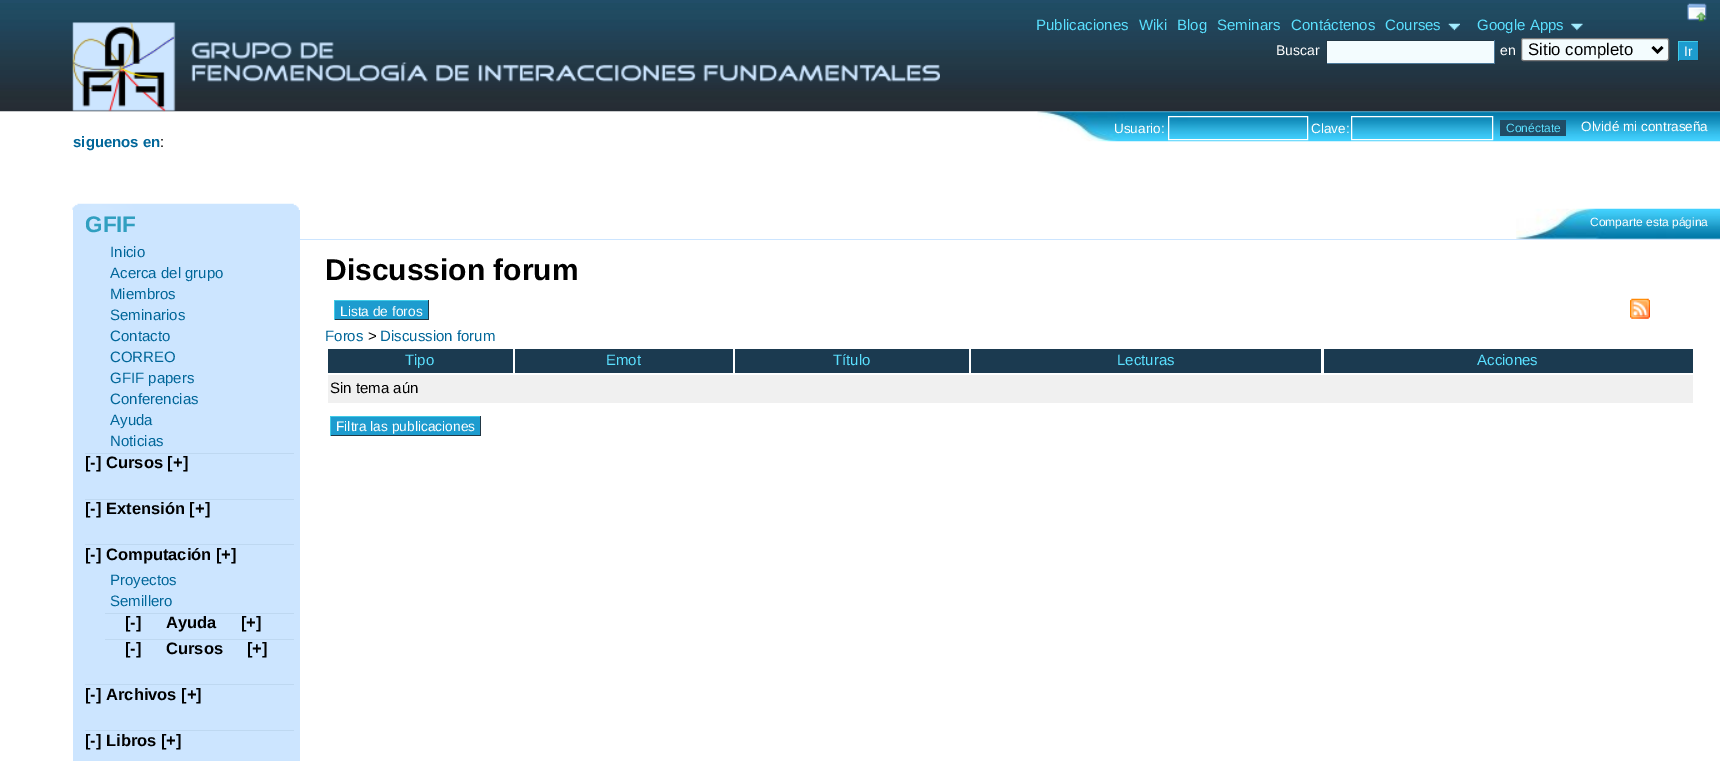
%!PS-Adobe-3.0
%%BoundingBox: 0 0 1720 761
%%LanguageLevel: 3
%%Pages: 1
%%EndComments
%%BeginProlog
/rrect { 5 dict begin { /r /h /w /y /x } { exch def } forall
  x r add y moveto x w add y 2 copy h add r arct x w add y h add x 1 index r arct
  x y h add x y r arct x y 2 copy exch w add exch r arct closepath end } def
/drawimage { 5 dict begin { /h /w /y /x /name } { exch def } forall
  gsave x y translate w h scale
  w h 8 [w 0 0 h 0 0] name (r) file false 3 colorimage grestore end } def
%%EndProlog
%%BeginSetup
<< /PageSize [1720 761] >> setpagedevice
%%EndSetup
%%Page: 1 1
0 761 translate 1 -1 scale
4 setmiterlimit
1 setgray
0 0 1720 761 rectfill
(images/6.raw) 1037 111 683 31 drawimage
(images/2.raw) 0 3 1720 109 drawimage
(images/1.raw) 1687 3 20 19 drawimage
0.129 0.302 0.408 setrgbcolor
0 0 1720 3 rectfill
(images/3.raw) 72 22 868 90 drawimage
(images/4.raw) 1448 23 12 8 drawimage
(images/5.raw) 1571 23 12 8 drawimage
0.953 0.988 0.996 setrgbcolor
1327 41 167 22 rectfill
0.133 0.22 0.271 setrgbcolor
1326 40 169 1 rectfill
0.302 0.482 0.608 setrgbcolor
1494 40 1 24 rectfill
1326 63 169 1 rectfill
0.133 0.22 0.271 setrgbcolor
1326 40 1 24 rectfill
0.953 0.988 0.996 setrgbcolor
1521.5 38.5 147 22 2 rrect gsave fill grestore
0.463 setgray
stroke
0 setgray
2.5 setlinewidth
newpath 1652.5 47 moveto 1657.5 52 lineto 1662.5 47 lineto stroke
0.114 0.612 0.812 setrgbcolor
1679 42 19 18 rectfill
0.255 0.796 0.906 setrgbcolor
1678 41 21 1 rectfill
0.133 0.22 0.271 setrgbcolor
1698 41 1 20 rectfill
1678 60 21 1 rectfill
0.255 0.796 0.906 setrgbcolor
1678 41 1 20 rectfill
1 setgray
1 setlinewidth
1168.5 116.5 139 23 rectstroke
1351.5 116.5 141 23 rectstroke
0.125 0.298 0.396 setrgbcolor
1500 120 66 16 rectfill
(images/7.raw) 72 203 227 7 drawimage
0.8 0.898 1 setrgbcolor
73 210 227 551 rectfill
0.745 0.847 0.945 setrgbcolor
85 453 209 1 rectfill
85 499 209 1 rectfill
85 544 209 1 rectfill
105 613 189 1 rectfill
105 639 189 1 rectfill
85 684 209 1 rectfill
85 730 209 1 rectfill
0.8 0.898 1 setrgbcolor
300 239 1420 1 rectfill
(images/8.raw) 1516 208 204 31 drawimage
0.114 0.612 0.812 setrgbcolor
335 301 93 18 rectfill
0.255 0.796 0.906 setrgbcolor
334 300 95 1 rectfill
0.133 0.22 0.271 setrgbcolor
428 300 1 20 rectfill
334 319 95 1 rectfill
0.255 0.796 0.906 setrgbcolor
334 300 1 20 rectfill
(images/9.raw) 1630 298 20 21 drawimage
0.106 0.227 0.314 setrgbcolor
328 349 185 24 rectfill
515 349 218 24 rectfill
735 349 234 24 rectfill
971 349 350 24 rectfill
1324 349 369 24 rectfill
0.941 setgray
328 375 1365 28 rectfill
0.114 0.612 0.812 setrgbcolor
331 417 149 18 rectfill
0.255 0.796 0.906 setrgbcolor
330 416 151 1 rectfill
0.133 0.22 0.271 setrgbcolor
480 416 1 20 rectfill
330 435 151 1 rectfill
0.255 0.796 0.906 setrgbcolor
330 416 1 20 rectfill
/LiberationSans-Regular [15 0 0 -15 0 0] selectfont
0.353 0.878 1 setrgbcolor
1036 30 moveto (Publicaciones) show
1139 30 moveto (Wiki) show
1177 30 moveto (Blog) show
1217 30 moveto (Seminars) show
1291 30 moveto (Contáctenos) show
1385 30 moveto (Courses) show
1477 30 moveto (Google Apps) show
/LiberationSans-Regular [14 0 0 -14 0 0] selectfont
1 setgray
1276 55 moveto (Buscar) show
1500 55 moveto (en) show
/LiberationSans-Regular [16.75 0 0 -16.75 0 0] selectfont
0 setgray
1528 55 moveto (Sitio completo) show
/LiberationSans-Regular [13.75 0 0 -13.75 0 0] selectfont
1 setgray
1684 56 moveto (Ir) show
/LiberationSans-Regular [13.5 0 0 -13.5 0 0] selectfont
1114 133 moveto (Usuario:) show
1311 133 moveto (Clave:) show
/LiberationSans-Regular [12 0 0 -12 0 0] selectfont
0.353 0.878 1 setrgbcolor
1506 132 moveto (Conéctate) show
/LiberationSans-Regular [13.5 0 0 -13.5 0 0] selectfont
1 setgray
1581 131 moveto (Olvidé mi contraseña) show
/LiberationSans-Bold [15 0 0 -15 0 0] selectfont
0 0.4 0.6 setrgbcolor
73 147 moveto (siguenos en) show
/LiberationSans-Regular [15 0 0 -15 0 0] selectfont
0 setgray
160 147 moveto (:) show
/LiberationSans-Bold [22.5 0 0 -22.5 0 0] selectfont
0.188 0.624 0.753 setrgbcolor
85 232 moveto (GFIF) show
/LiberationSans-Regular [15 0 0 -15 0 0] selectfont
0 0.4 0.6 setrgbcolor
110 257 moveto (Inicio) show
110 278 moveto (Acerca del grupo) show
110 299 moveto (Miembros) show
110 320 moveto (Seminarios) show
110 341 moveto (Contacto) show
110 362 moveto (CORREO) show
110 383 moveto (GFIF papers) show
110 404 moveto (Conferencias) show
110 425 moveto (Ayuda) show
110 446 moveto (Noticias) show
/LiberationSans-Bold [16.5 0 0 -16.5 0 0] selectfont
0 setgray
85 468 moveto ([-]) show
106 468 moveto (Cursos [+]) show
85 514 moveto ([-]) show
106 514 moveto (Extensión [+]) show
85 560 moveto ([-]) show
106 560 moveto (Computación [+]) show
/LiberationSans-Regular [15 0 0 -15 0 0] selectfont
0 0.4 0.6 setrgbcolor
110 585 moveto (Proyectos) show
110 606 moveto (Semillero) show
/LiberationSans-Bold [16.5 0 0 -16.5 0 0] selectfont
0 setgray
125 628 moveto ([-]) show
166 628 moveto (Ayuda) show
241 628 moveto ([+]) show
125 654 moveto ([-]) show
166 654 moveto (Cursos) show
247 654 moveto ([+]) show
85 700 moveto ([-]) show
106 700 moveto (Archivos [+]) show
85 746 moveto ([-]) show
106 746 moveto (Libros [+]) show
/LiberationSans-Regular [12 0 0 -12 0 0] selectfont
1 setgray
1590 226 moveto (Comparte esta página) show
/LiberationSans-Bold [30 0 0 -30 0 0] selectfont
0 setgray
325 280 moveto (Discussion forum) show
/LiberationSans-Regular [13.75 0 0 -13.75 0 0] selectfont
1 setgray
340 316 moveto (Lista de foros) show
/LiberationSans-Regular [15 0 0 -15 0 0] selectfont
0 0.4 0.6 setrgbcolor
325 341 moveto (Foros) show
0 setgray
368 341 moveto (>) show
0 0.4 0.6 setrgbcolor
380 341 moveto (Discussion forum) show
0.353 0.878 1 setrgbcolor
405 365 moveto (Tipo) show
606 365 moveto (Emot) show
833 365 moveto (Título) show
1117 365 moveto (Lecturas) show
1477 365 moveto (Acciones) show
0 setgray
330 393 moveto (Sin tema aún) show
/LiberationSans-Regular [13.75 0 0 -13.75 0 0] selectfont
1 setgray
336 431 moveto (Filtra las publicaciones) show
showpage
%%EOF
